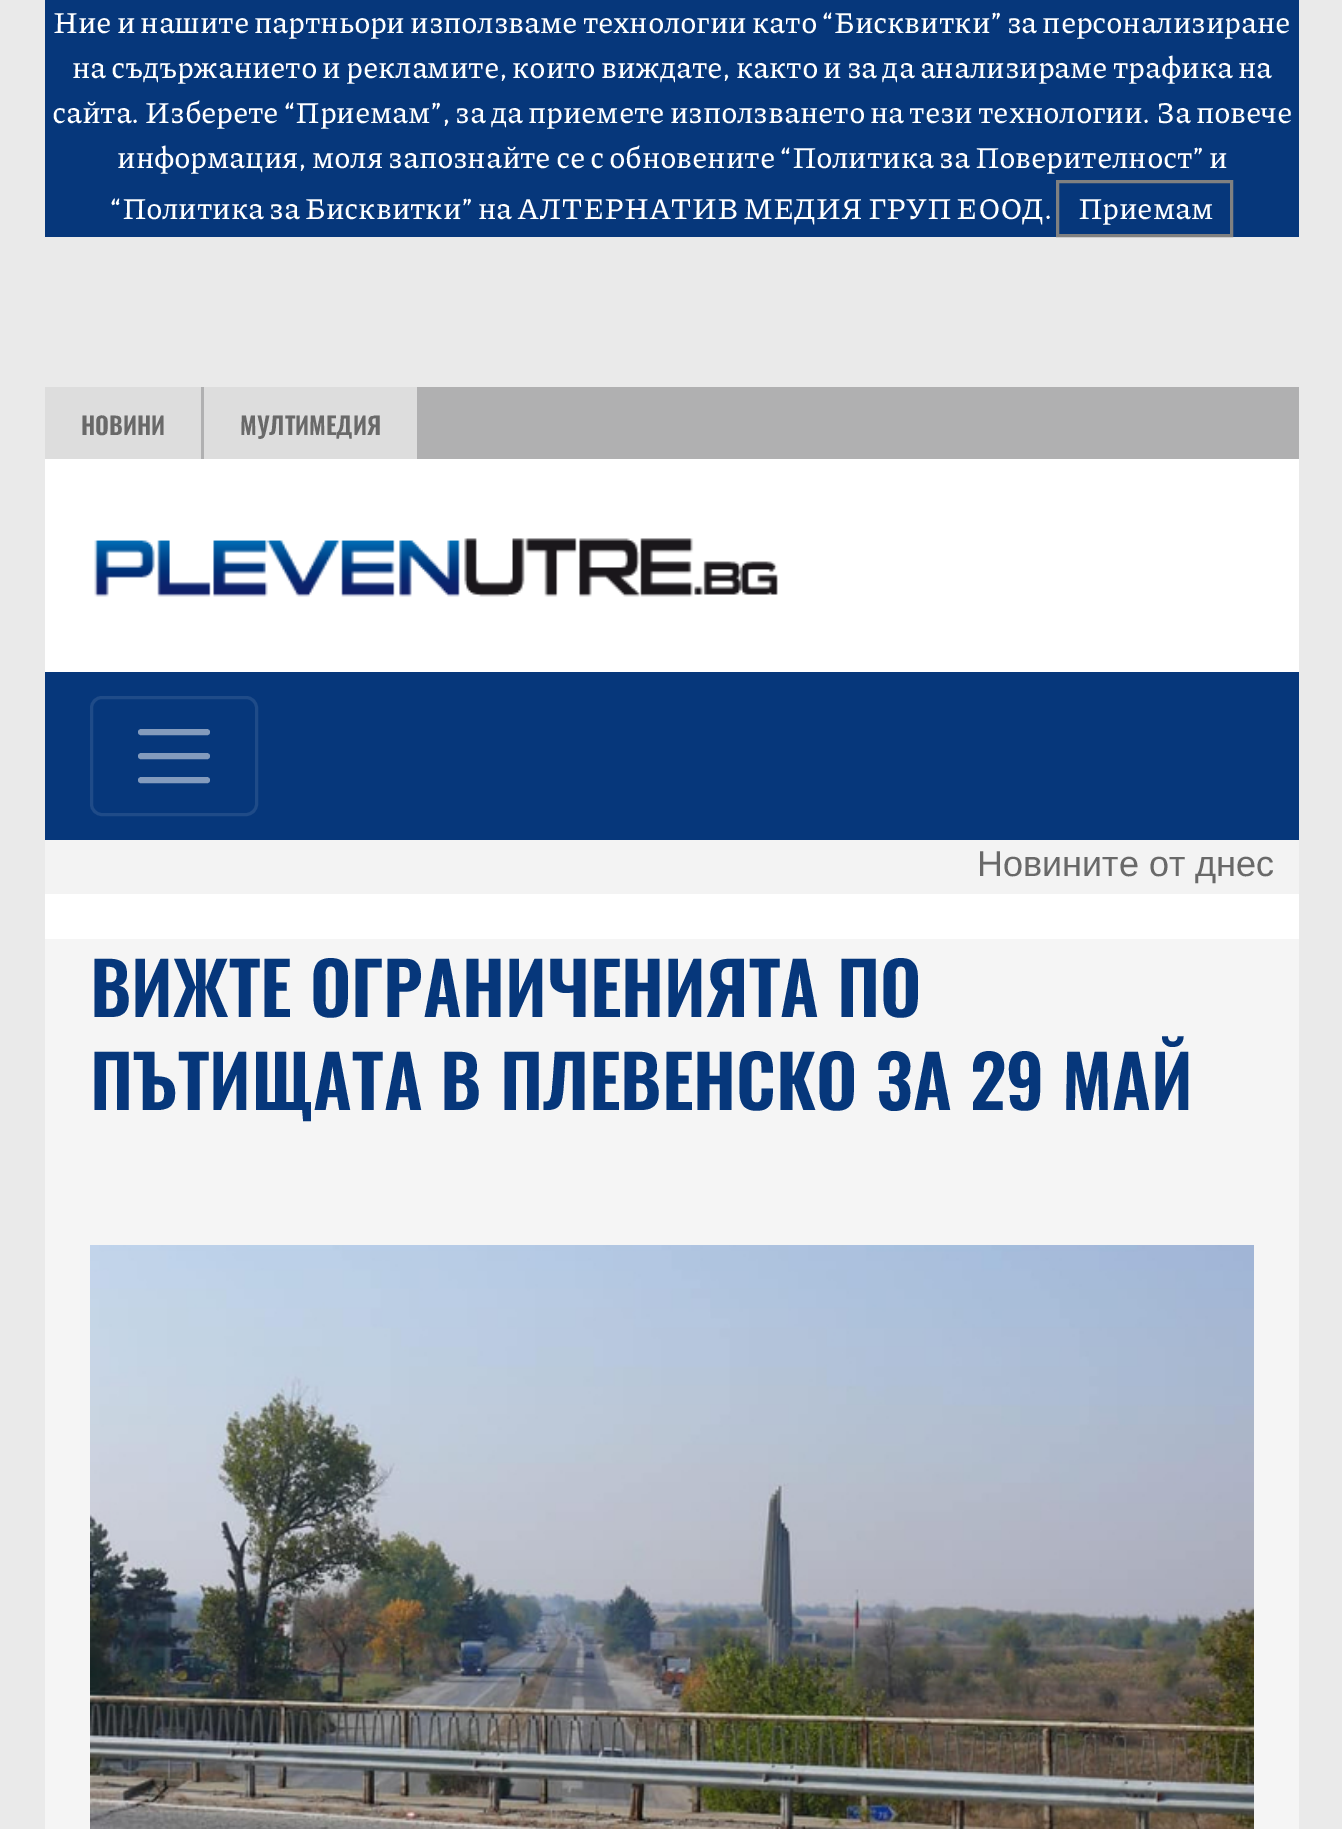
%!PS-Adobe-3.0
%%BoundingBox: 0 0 1342 1829
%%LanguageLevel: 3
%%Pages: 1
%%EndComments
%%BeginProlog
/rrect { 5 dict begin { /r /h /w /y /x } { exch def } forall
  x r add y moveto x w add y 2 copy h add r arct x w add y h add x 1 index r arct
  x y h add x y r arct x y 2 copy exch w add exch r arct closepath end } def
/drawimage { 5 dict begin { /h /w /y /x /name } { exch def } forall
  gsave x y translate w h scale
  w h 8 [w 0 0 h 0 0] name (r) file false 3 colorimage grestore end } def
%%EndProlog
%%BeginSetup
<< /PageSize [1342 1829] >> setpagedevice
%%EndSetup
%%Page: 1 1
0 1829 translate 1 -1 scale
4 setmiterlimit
0.918 setgray
0 0 1342 1829 rectfill
0.024 0.216 0.482 setrgbcolor
45 0 1254 237 rectfill
0.502 setgray
3 setlinewidth
1057.5 181.5 174 54 rectstroke
0.69 0.69 0.694 setrgbcolor
417 387 882 72 rectfill
0.867 setgray
45 387 156 72 rectfill
0.69 0.69 0.694 setrgbcolor
201 387 3 72 rectfill
0.867 setgray
204 387 213 72 rectfill
1 setgray
45 459 1254 213 rectfill
(images/1.raw) 94 538 684 59 drawimage
0.024 0.216 0.482 setrgbcolor
45 672 1254 168 rectfill
0.122 0.294 0.533 setrgbcolor
91.5 697.5 165 117 10.5 rrect stroke
0.514 0.608 0.741 setrgbcolor
6 setlinewidth
1 setlinecap
newpath 141 732 moveto 207 732 lineto 141 756 moveto 207 756 lineto 141 780 moveto 207 780 lineto stroke
0.953 setgray
45 840 1254 54 rectfill
1 setgray
45 894 1254 45 rectfill
0.961 setgray
45 939 1254 890 rectfill
(images/2.raw) 90 1245 1164 584 drawimage
/Piazzolla-Thin [30 0 0 -30 0 0] selectfont
1 setgray
53 33 moveto (Ние и нашите партньори използваме технологии като “Бисквитки” за персонализиране) show
72 78 moveto (на съдържанието и рекламите, които виждате, както и за да анализираме трафика на) show
52 123 moveto (сайта. Изберете “Приемам”, за да приемете използването на тези технологии. За повече) show
117 168 moveto (информация, моля запознайте се с обновените “Политика за Поверителност” и) show
110 219 moveto (“Политика за Бисквитки” на АЛТЕРНАТИВ МЕДИЯ ГРУП ЕООД.) show
1078 219 moveto (Приемам) show
/Oswald-SemiBold [24 0 0 -24 0 0] selectfont
0.412 setgray
81 435 moveto (НОВИНИ) show
240 435 moveto (МУЛТИМЕДИЯ) show
/LiberationSans-Regular [36 0 0 -36 0 0] selectfont
977 876 moveto (Новините от днес) show
/Oswald-SemiBold [72 0 0 -72 0 0] selectfont
0.024 0.216 0.482 setrgbcolor
90 1017 moveto (ВИЖТЕ ОГРАНИЧЕНИЯТА ПО) show
90 1110 moveto (ПЪТИЩАТА В ПЛЕВЕНСКО ЗА 29 МАЙ) show
showpage
%%EOF
